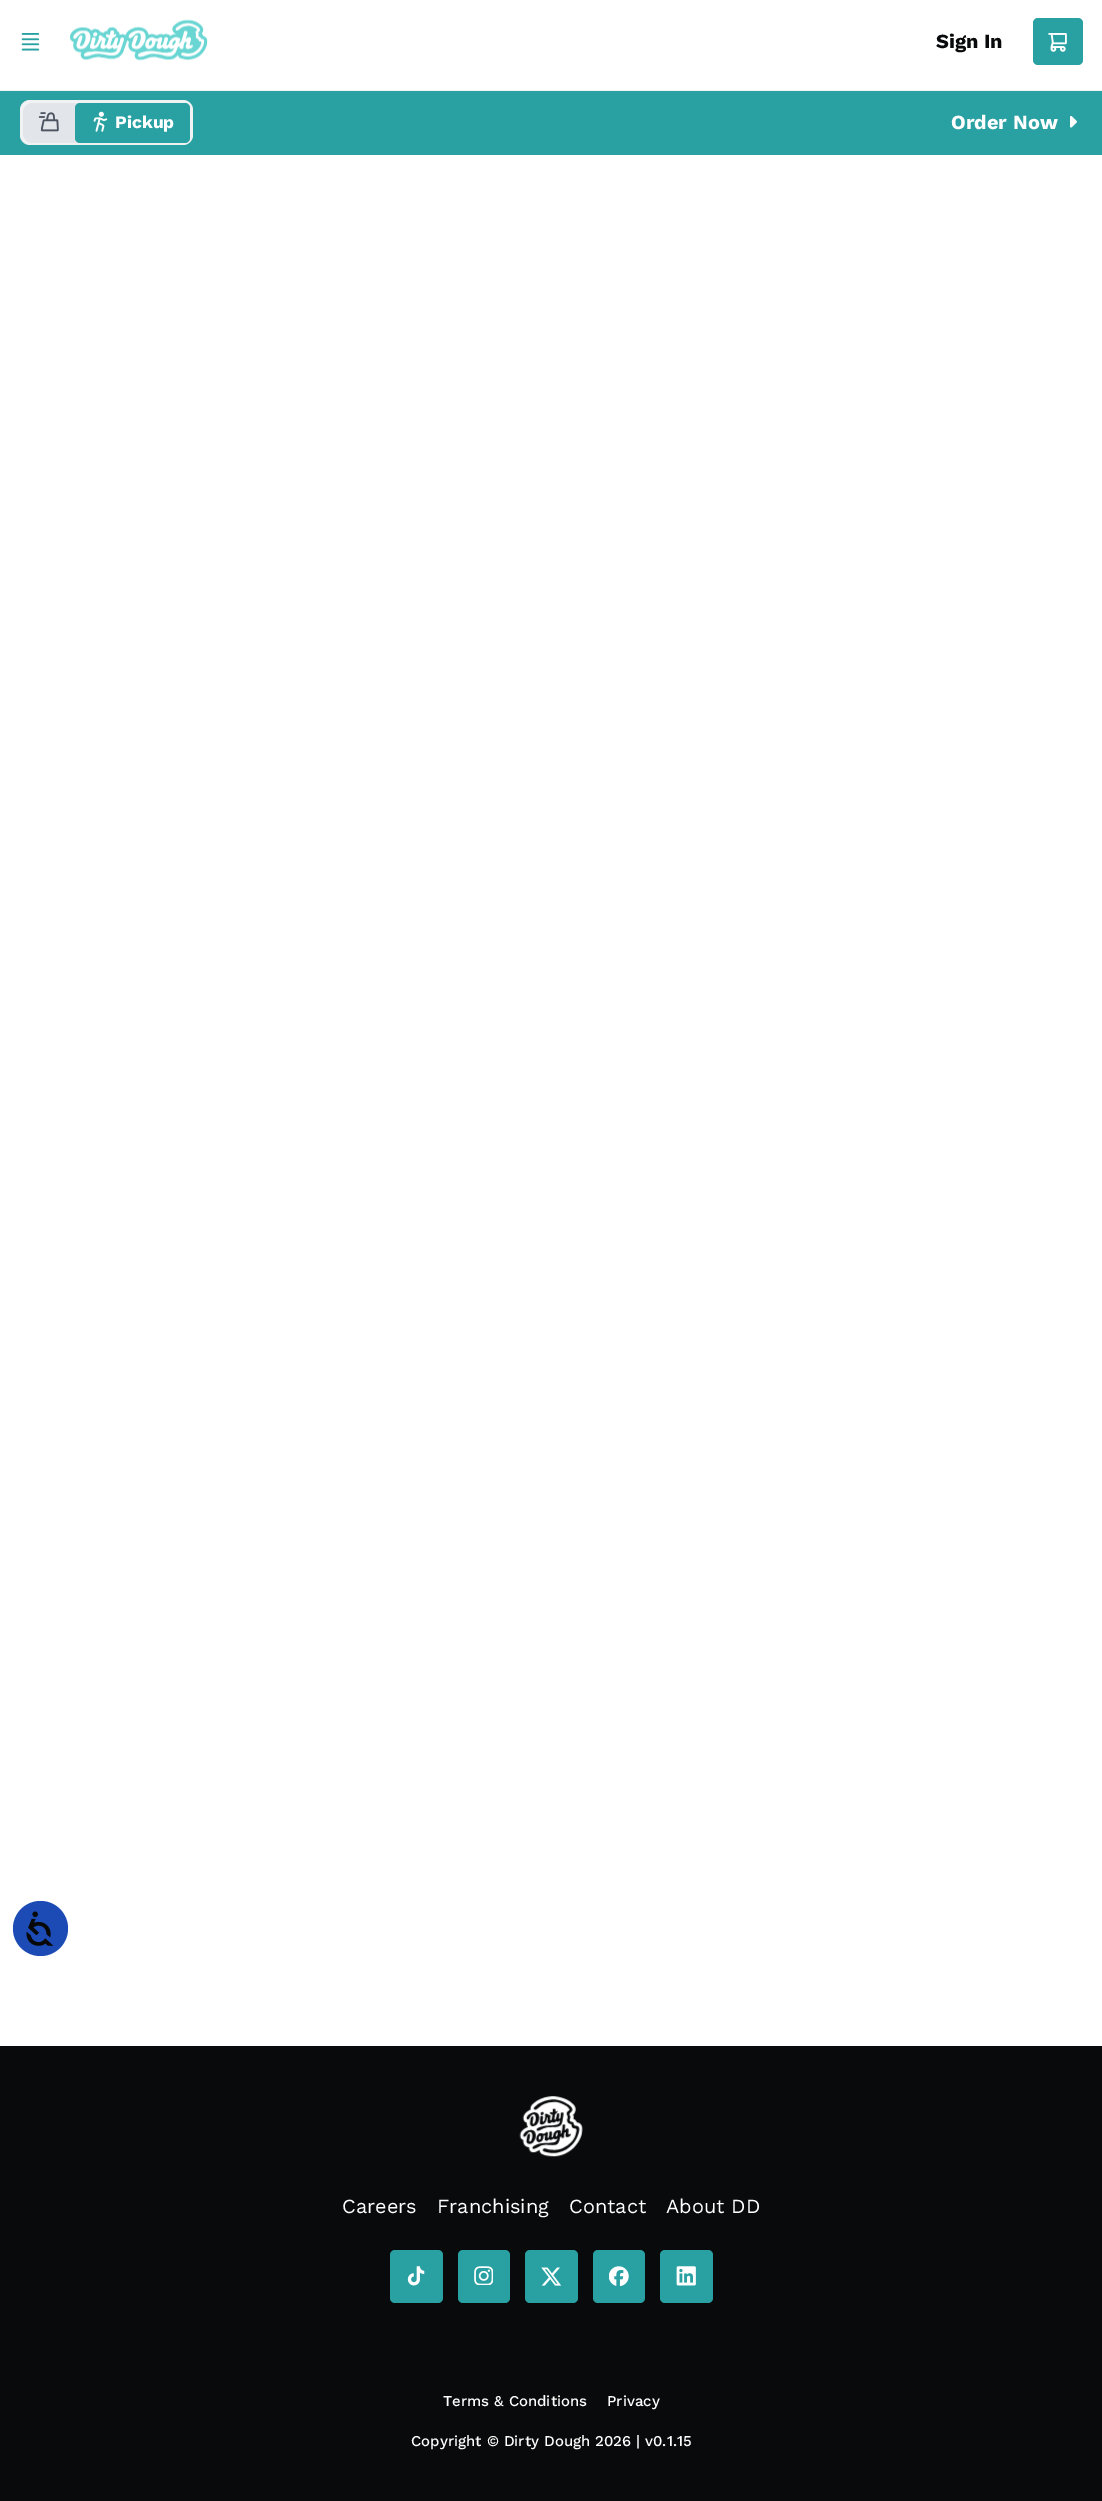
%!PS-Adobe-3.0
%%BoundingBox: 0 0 1102 2501
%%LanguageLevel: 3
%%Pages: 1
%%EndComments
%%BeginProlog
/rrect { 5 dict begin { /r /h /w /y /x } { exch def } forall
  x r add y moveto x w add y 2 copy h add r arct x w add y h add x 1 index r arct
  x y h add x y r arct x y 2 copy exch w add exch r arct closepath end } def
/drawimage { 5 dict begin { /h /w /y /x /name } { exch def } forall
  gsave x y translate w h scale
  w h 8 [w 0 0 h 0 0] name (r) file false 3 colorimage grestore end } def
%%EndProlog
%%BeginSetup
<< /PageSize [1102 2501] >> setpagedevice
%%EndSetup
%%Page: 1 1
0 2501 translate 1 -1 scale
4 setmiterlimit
1 setgray
0 0 1102 2501 rectfill
0.11 0.294 0.714 setrgbcolor
newpath 40.5 1928.5 27.5 0 360 arc closepath fill
(images/1.raw) 26 1911 28 35 drawimage
0.945 0.949 0.957 setrgbcolor
0 90 1102 1 rectfill
(images/2.raw) 21 33 19 18 drawimage
(images/3.raw) 70 19 138 42 drawimage
0.161 0.631 0.639 setrgbcolor
1033 18 50 47 5 rrect fill
(images/4.raw) 1048 33 19 19 drawimage
0 91 1102 64 rectfill
0.945 0.949 0.957 setrgbcolor
20 100 173 45 10 rrect fill
0.886 0.898 0.914 setrgbcolor
23 103 167 40 10 rrect fill
(images/5.raw) 38 112 21 20 drawimage
0.161 0.631 0.639 setrgbcolor
75 103 115 40 5 rrect fill
(images/6.raw) 93 111 15 21 drawimage
(images/7.raw) 1070 115 7 13 drawimage
0.035 0.039 0.043 setrgbcolor
0 2046 1102 455 rectfill
(images/8.raw) 519 2096 64 61 drawimage
0.161 0.631 0.639 setrgbcolor
390 2250 53 53 5 rrect fill
(images/9.raw) 407 2266 18 20 drawimage
458 2250 52 53 5 rrect fill
(images/10.raw) 474 2266 19 19 drawimage
525 2250 53 53 5 rrect fill
(images/11.raw) 541 2267 20 19 drawimage
593 2250 52 53 5 rrect fill
(images/12.raw) 609 2266 20 20 drawimage
660 2250 53 53 5 rrect fill
(images/13.raw) 676 2266 20 20 drawimage
/WorkSans-Bold [20 0 0 -20 0 0] selectfont
0.035 0.039 0.043 setrgbcolor
936 48 moveto (Sign In) show
/WorkSans-Bold [17.5 0 0 -17.5 0 0] selectfont
1 setgray
115 128 moveto (Pickup) show
/WorkSans-Bold [20 0 0 -20 0 0] selectfont
951 129 moveto (Order Now) show
/WorkSans-Regular [20 0 0 -20 0 0] selectfont
342 2213 moveto (Careers) show
437 2213 moveto (Franchising) show
569 2213 moveto (Contact) show
666 2213 moveto (About DD) show
/WorkSans-Medium [15 0 0 -15 0 0] selectfont
443 2406 moveto (Terms & Conditions) show
607 2406 moveto (Privacy) show
411 2446 moveto (Copyright © Dirty Dough 2026 | v0.1.15) show
showpage
%%EOF
